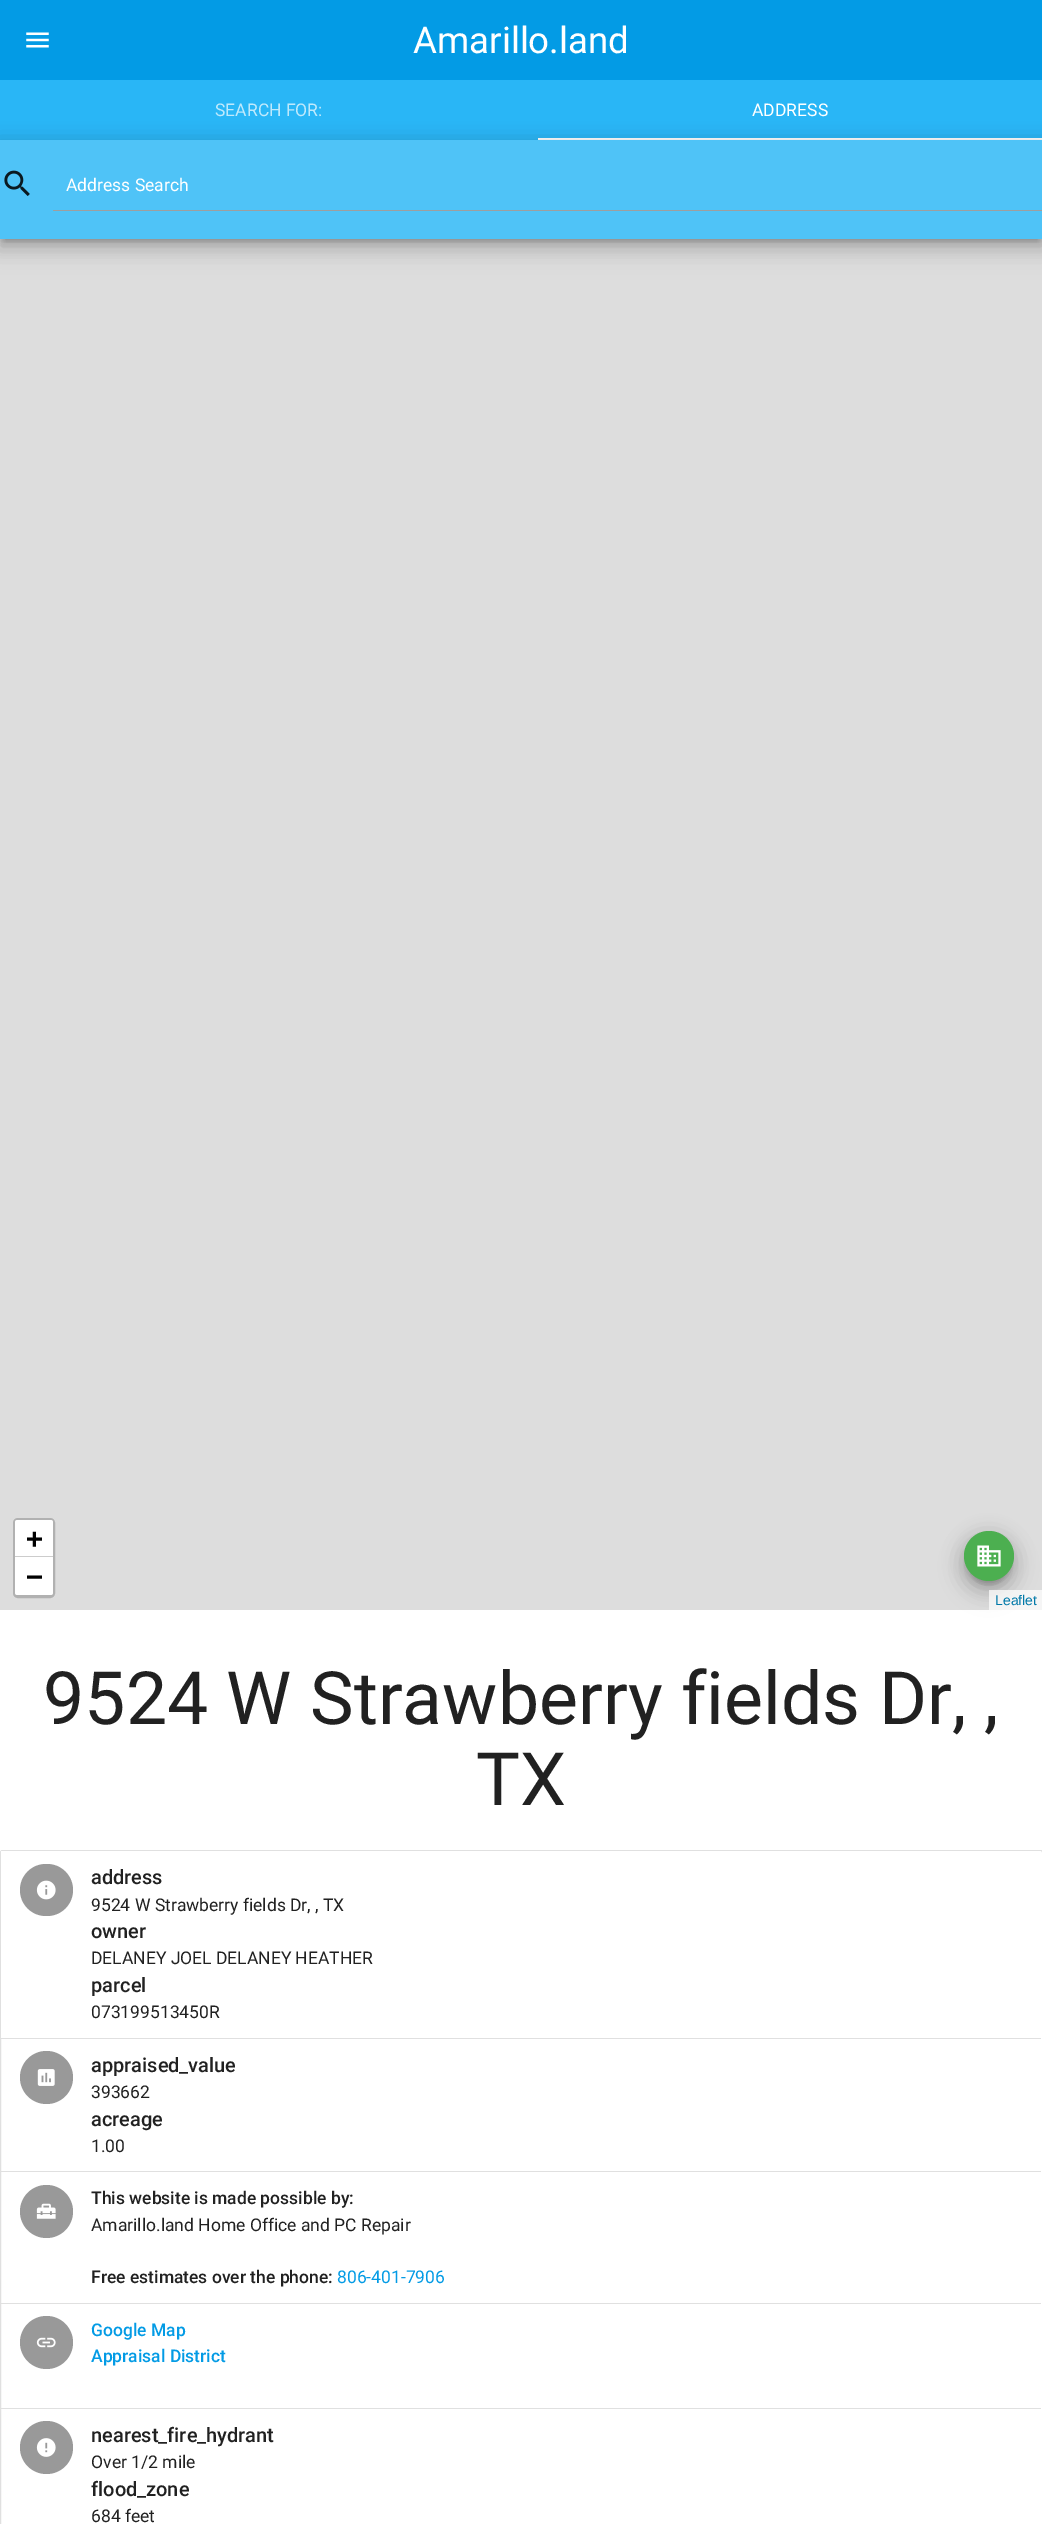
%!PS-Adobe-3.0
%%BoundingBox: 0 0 1042 2524
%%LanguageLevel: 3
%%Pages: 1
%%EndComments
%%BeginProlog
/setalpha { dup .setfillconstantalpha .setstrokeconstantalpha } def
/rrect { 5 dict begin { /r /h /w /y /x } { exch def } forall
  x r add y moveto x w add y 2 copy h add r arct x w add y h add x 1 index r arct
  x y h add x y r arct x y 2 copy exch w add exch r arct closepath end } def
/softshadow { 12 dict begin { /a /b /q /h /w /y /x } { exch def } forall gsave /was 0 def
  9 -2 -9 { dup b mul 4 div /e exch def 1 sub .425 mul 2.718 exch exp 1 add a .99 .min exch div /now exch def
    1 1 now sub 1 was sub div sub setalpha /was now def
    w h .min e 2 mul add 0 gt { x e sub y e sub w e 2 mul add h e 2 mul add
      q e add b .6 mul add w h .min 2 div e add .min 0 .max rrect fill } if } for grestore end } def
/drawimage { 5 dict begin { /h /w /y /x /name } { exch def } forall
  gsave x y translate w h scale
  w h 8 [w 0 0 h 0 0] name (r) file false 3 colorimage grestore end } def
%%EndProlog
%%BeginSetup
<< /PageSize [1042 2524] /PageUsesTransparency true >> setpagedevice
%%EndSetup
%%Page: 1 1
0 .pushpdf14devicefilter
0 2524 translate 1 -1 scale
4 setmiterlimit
1 setgray
0 0 1042 2524 rectfill
0.012 0.608 0.898 setrgbcolor
0 0 1042 80 rectfill
(images/1.raw) 26 32 23 16 drawimage
0.161 0.714 0.965 setrgbcolor
0 80 1042 60 rectfill
1 setgray
538 138 504 2 rectfill
0.867 setgray
0 239 1042 1371 rectfill
0 setgray
4 150 1035 91 0 3 0.2 softshadow
-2 141 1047 104 0 9 0.12 softshadow
-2 148 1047 103 0 10.5 0.14 softshadow
0.31 0.765 0.969 setrgbcolor
0 140 1042 99 rectfill
(images/2.raw) 4 170 26 26 drawimage
0.62 setgray
53 210 989 1 rectfill
0 setgray
968 1541 42 43 21 3 0.2 softshadow
961 1533 55 55 27.5 9 0.12 softshadow
961 1539 55 55 27.5 10.5 0.14 softshadow
0.298 0.686 0.314 setrgbcolor
newpath 989 1556 25 0 360 arc closepath fill
(images/3.raw) 977 1545 24 22 drawimage
0.694 setgray
3 setlinewidth
14.5 1519.5 39 77 3.5 rrect stroke
1 setgray
newpath 17.5 1520 moveto 50.5 1520 lineto 52 1520 53 1521 53 1522.5 curveto 53 1558 lineto 15 1558 lineto 15 1522.5 lineto 15 1521 16 1520 17.5 1520 curveto closepath fill
0.8 setgray
15 1556 38 1 rectfill
1 setgray
newpath 15 1558 moveto 53 1558 lineto 53 1592.5 lineto 53 1594 52 1595 50.5 1595 curveto 17.5 1595 lineto 16 1595 15 1594 15 1592.5 curveto closepath fill
0.7 setalpha
989 1590 53 20 rectfill
1 setalpha
0.878 setgray
1 setlinewidth
0.5 1850.5 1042 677 2 rrect stroke
1 setgray
newpath 2 1851 moveto 1040 1851 lineto 1040.5 1851 1041 1851.5 1041 1852 curveto 1041 2039 lineto 1 2039 lineto 1 1852 lineto 1 1851.5 1.5 1851 2 1851 curveto closepath fill
0.878 setgray
1 2038 1040 1 rectfill
0.6 setgray
20 1864 53 52 26 rrect fill
(images/4.raw) 36 1880 20 20 drawimage
0.878 setgray
1 2171 1040 1 rectfill
0.6 setgray
newpath 46.5 2077.5 26.5 0 360 arc closepath fill
(images/5.raw) 37 2069 18 17 drawimage
0.878 setgray
1 2303 1040 1 rectfill
0.6 setgray
newpath 46.5 2211.5 26.5 0 360 arc closepath fill
(images/6.raw) 36 2203 20 16 drawimage
0.878 setgray
1 2408 1040 1 rectfill
0.6 setgray
newpath 46.5 2342.5 26.5 0 360 arc closepath fill
(images/7.raw) 36 2337 20 11 drawimage
newpath 46.5 2447.5 26.5 0 360 arc closepath fill
(images/8.raw) 36 2438 20 19 drawimage
/Roboto-Regular [36.75 0 0 -36.75 0 0] selectfont
1 setgray
413 53 moveto (Amarillo.land) show
/Roboto-Regular [17.5 0 0 -17.5 0 0] selectfont
0.749 0.914 0.988 setrgbcolor
215 116 moveto (SEARCH FOR:) show
1 setgray
752 116 moveto (ADDRESS) show
66 191 moveto (Address Search) show
/DejaVuSansMono-Bold [28 0 0 -28 0 0] selectfont
0 setgray
26 1548 moveto (+) show
26 1586 moveto (−) show
/LiberationSans-Regular [14 0 0 -14 0 0] selectfont
0 0.471 0.659 setrgbcolor
995 1605 moveto (Leaflet) show
/Roboto-Regular [73.5 0 0 -73.5 0 0] selectfont
0.129 setgray
43 1724 moveto (9524 W Strawberry fields Dr, ,) show
476 1805 moveto (TX) show
/Roboto-Medium [20 0 0 -20 0 0] selectfont
91 1884 moveto (address) show
/Roboto-Regular [17.5 0 0 -17.5 0 0] selectfont
91 1911 moveto (9524 W Strawberry fields Dr, , TX) show
/Roboto-Medium [20 0 0 -20 0 0] selectfont
91 1938 moveto (owner) show
/Roboto-Regular [17.5 0 0 -17.5 0 0] selectfont
91 1964 moveto (DELANEY JOEL DELANEY HEATHER) show
/Roboto-Medium [20 0 0 -20 0 0] selectfont
91 1992 moveto (parcel) show
/Roboto-Regular [17.5 0 0 -17.5 0 0] selectfont
91 2018 moveto (073199513450R) show
/Roboto-Medium [20 0 0 -20 0 0] selectfont
91 2072 moveto (appraised_value) show
/Roboto-Regular [17.5 0 0 -17.5 0 0] selectfont
91 2098 moveto (393662) show
/Roboto-Medium [20 0 0 -20 0 0] selectfont
91 2126 moveto (acreage) show
/Roboto-Regular [17.5 0 0 -17.5 0 0] selectfont
91 2152 moveto (1.00) show
/Roboto-Medium [17.5 0 0 -17.5 0 0] selectfont
91 2204 moveto (This website is made possible by:) show
/Roboto-Regular [17.5 0 0 -17.5 0 0] selectfont
91 2231 moveto (Amarillo.land Home Office and PC Repair) show
/Roboto-Medium [17.5 0 0 -17.5 0 0] selectfont
91 2283 moveto (Free estimates over the phone:) show
/Roboto-Regular [17.5 0 0 -17.5 0 0] selectfont
0.012 0.608 0.898 setrgbcolor
337 2283 moveto (806-401-7906) show
/Roboto-Medium [17.5 0 0 -17.5 0 0] selectfont
91 2336 moveto (Google Map) show
91 2362 moveto (Appraisal District) show
/Roboto-Medium [20 0 0 -20 0 0] selectfont
0.129 setgray
91 2442 moveto (nearest_fire_hydrant) show
/Roboto-Regular [17.5 0 0 -17.5 0 0] selectfont
91 2468 moveto (Over 1/2 mile) show
/Roboto-Medium [20 0 0 -20 0 0] selectfont
91 2496 moveto (flood_zone) show
/Roboto-Regular [17.5 0 0 -17.5 0 0] selectfont
91 2522 moveto (684 feet) show
.poppdf14devicefilter showpage
%%EOF
